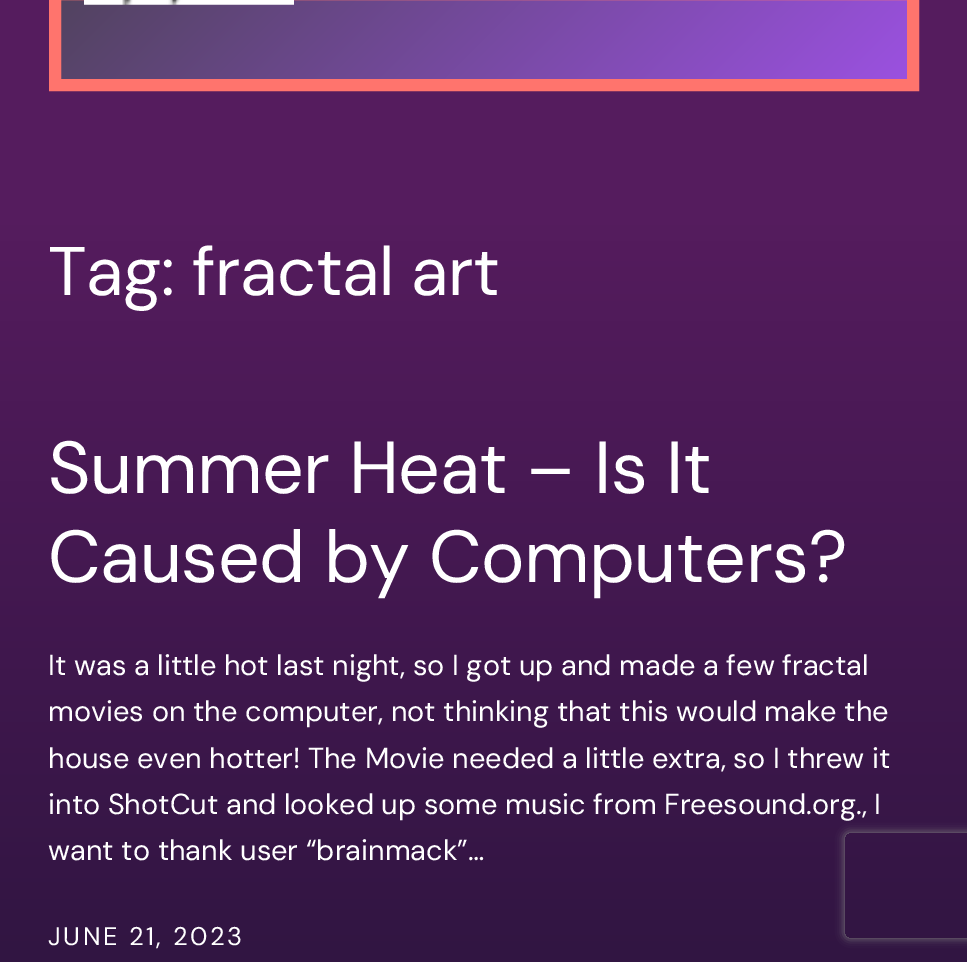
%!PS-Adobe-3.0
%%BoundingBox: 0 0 967 962
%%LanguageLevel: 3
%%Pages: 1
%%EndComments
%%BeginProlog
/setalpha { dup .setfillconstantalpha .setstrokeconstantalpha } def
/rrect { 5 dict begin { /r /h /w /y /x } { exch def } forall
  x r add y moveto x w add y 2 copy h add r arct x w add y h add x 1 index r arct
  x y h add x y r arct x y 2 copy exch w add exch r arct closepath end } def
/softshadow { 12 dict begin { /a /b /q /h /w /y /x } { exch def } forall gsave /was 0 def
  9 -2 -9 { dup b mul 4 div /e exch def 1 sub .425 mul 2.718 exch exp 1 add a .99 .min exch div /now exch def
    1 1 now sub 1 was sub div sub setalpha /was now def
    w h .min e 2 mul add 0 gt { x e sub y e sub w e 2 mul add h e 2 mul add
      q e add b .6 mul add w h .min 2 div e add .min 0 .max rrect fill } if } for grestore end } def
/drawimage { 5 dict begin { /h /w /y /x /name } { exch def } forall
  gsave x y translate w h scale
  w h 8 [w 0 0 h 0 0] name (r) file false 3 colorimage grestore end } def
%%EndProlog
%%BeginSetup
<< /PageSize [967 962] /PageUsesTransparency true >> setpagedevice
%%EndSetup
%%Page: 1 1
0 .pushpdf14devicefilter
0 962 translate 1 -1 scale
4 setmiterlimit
1 setgray
0 0 967 962 rectfill
gsave newpath 0 0 moveto 967 0 lineto 967 962 lineto 0 962 lineto closepath clip newpath
<< /ShadingType 2 /ColorSpace /DeviceRGB /Coords [484 -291 484 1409] /Extend [true true] /Function << /FunctionType 3 /Domain [0 1] /Functions [<< /FunctionType 2 /Domain [0 1] /C0 [0.333 0.11 0.369] /C1 [0.333 0.11 0.369] /N 1 >> << /FunctionType 2 /Domain [0 1] /C0 [0.333 0.11 0.369] /C1 [0.106 0.063 0.192] /N 1 >>] /Bounds [0.3] /Encode [0 1 0 1] >> >> shfill grestore
gsave newpath 61 0 moveto 907 0 lineto 907 79 lineto 61 79 lineto closepath clip newpath
<< /ShadingType 2 /ColorSpace /DeviceRGB /Coords [196 -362 772 214] /Extend [true true] /Function << /FunctionType 2 /Domain [0 1] /C0 [0.251 0.251 0.251] /C1 [0.608 0.318 0.878] /N 1 >> >> shfill grestore
1 0.455 0.427 setrgbcolor
12 setlinewidth
55 -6 858 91 rectstroke
(images/1.raw) 84 0 210 5 drawimage
gsave
newpath 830 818 moveto 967 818 lineto 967 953 lineto 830 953 lineto closepath 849 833 moveto 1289 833 lineto 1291 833 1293 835 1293 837 curveto 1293 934 lineto 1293 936 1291 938 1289 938 curveto 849 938 lineto 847 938 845 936 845 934 curveto 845 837 lineto 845 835 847 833 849 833 curveto closepath eoclip newpath
0.502 setgray
845 833 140 105 4 4.5 1 softshadow
grestore
/DMSans-Regular [68.75 0 0 -68.75 0 0] selectfont
1 setgray
48 295 moveto -0.5 0 (Tag: fractal art) ashow
/DMSans-Regular [73.5 0 0 -73.5 0 0] selectfont
48 493 moveto -0.5 0 (Summer Heat – Is It) ashow
48 582 moveto -0.5 0 (Caused by Computers?) ashow
/DMSans-Regular [28.9 0 0 -28.9 0 0] selectfont
48 675 moveto (It was a little hot last night, so I got up and made a few fractal) show
48 721 moveto (movies on the computer, not thinking that this would make the) show
48 768 moveto (house even hotter! The Movie needed a little extra, so I threw it) show
48 814 moveto (into ShotCut and looked up some music from Freesound.org., I) show
48 860 moveto (want to thank user “brainmack”…) show
/DMSans-Regular [25.5 0 0 -25.5 0 0] selectfont
48 945 moveto 2.5 0 (JUNE 21, 2023) ashow
.poppdf14devicefilter showpage
%%EOF
